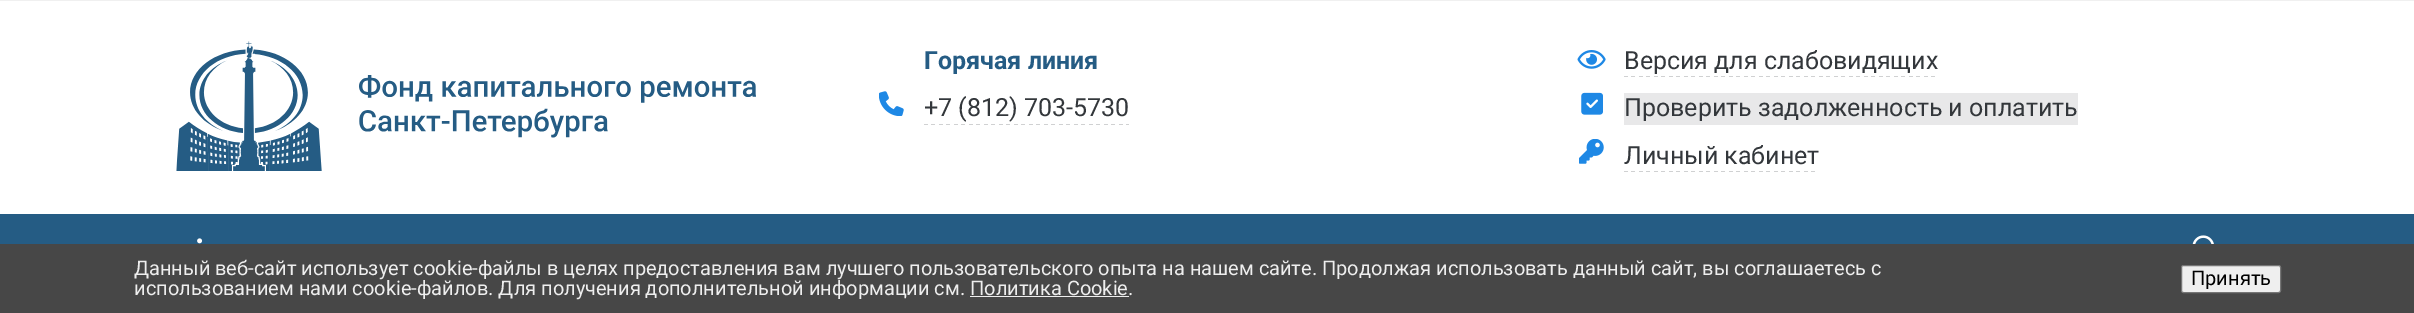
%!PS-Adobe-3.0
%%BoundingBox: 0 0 2414 313
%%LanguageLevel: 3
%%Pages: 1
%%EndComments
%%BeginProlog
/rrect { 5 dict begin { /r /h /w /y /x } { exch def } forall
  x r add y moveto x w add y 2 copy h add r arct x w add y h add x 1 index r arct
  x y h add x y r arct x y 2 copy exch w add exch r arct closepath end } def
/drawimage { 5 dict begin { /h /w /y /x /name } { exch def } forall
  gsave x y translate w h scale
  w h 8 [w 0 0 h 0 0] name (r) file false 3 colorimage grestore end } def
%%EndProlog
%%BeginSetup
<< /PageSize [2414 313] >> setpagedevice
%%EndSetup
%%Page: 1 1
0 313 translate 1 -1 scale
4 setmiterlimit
1 setgray
0 0 2414 313 rectfill
0.941 setgray
0 0 2414 1 rectfill
(images/1.raw) 176 41 580 130 drawimage
(images/2.raw) 879 91 25 25 drawimage
(images/3.raw) 924 124 205 1 drawimage
(images/4.raw) 1577 50 29 19 drawimage
(images/5.raw) 1624 76 311 1 drawimage
(images/6.raw) 1581 92 22 23 drawimage
0.91 0.91 0.914 setrgbcolor
1624 93 454 32 rectfill
(images/7.raw) 1579 139 25 25 drawimage
(images/8.raw) 1624 171 191 1 drawimage
0.145 0.361 0.518 setrgbcolor
0 214 2414 30 rectfill
(images/9.raw) 197 238 6 6 drawimage
(images/10.raw) 2192 235 22 9 drawimage
0.278 setgray
0 244 2414 69 rectfill
0.933 setgray
970 296 159 1 rectfill
0.937 setgray
2181.5 265.5 99 27 2 rrect gsave fill grestore
0.463 setgray
stroke
/Roboto-Bold [25 0 0 -25 0 0] selectfont
0.145 0.361 0.518 setrgbcolor
924 69 moveto (Горячая линия) show
/Roboto-Regular [25 0 0 -25 0 0] selectfont
0.2 0.216 0.231 setrgbcolor
924 116 moveto (+7 \(812\) 703-5730) show
1624 69 moveto (Версия для слабовидящих) show
1624 116 moveto (Проверить задолженность и оплатить) show
1624 164 moveto (Личный кабинет) show
/Roboto-Regular [20 0 0 -20 0 0] selectfont
0.933 setgray
134 275 moveto (Данный веб-сайт использует cookie-файлы в целях предоставления вам лучшего пользовательского опыта на нашем сайте. Продолжая использовать данный сайт, вы соглашаетесь с) show
134 295 moveto (использованием нами cookie-файлов. Для получения дополнительной информации см. Политика Cookie.) show
0 setgray
2191 285 moveto (Принять) show
showpage
%%EOF
